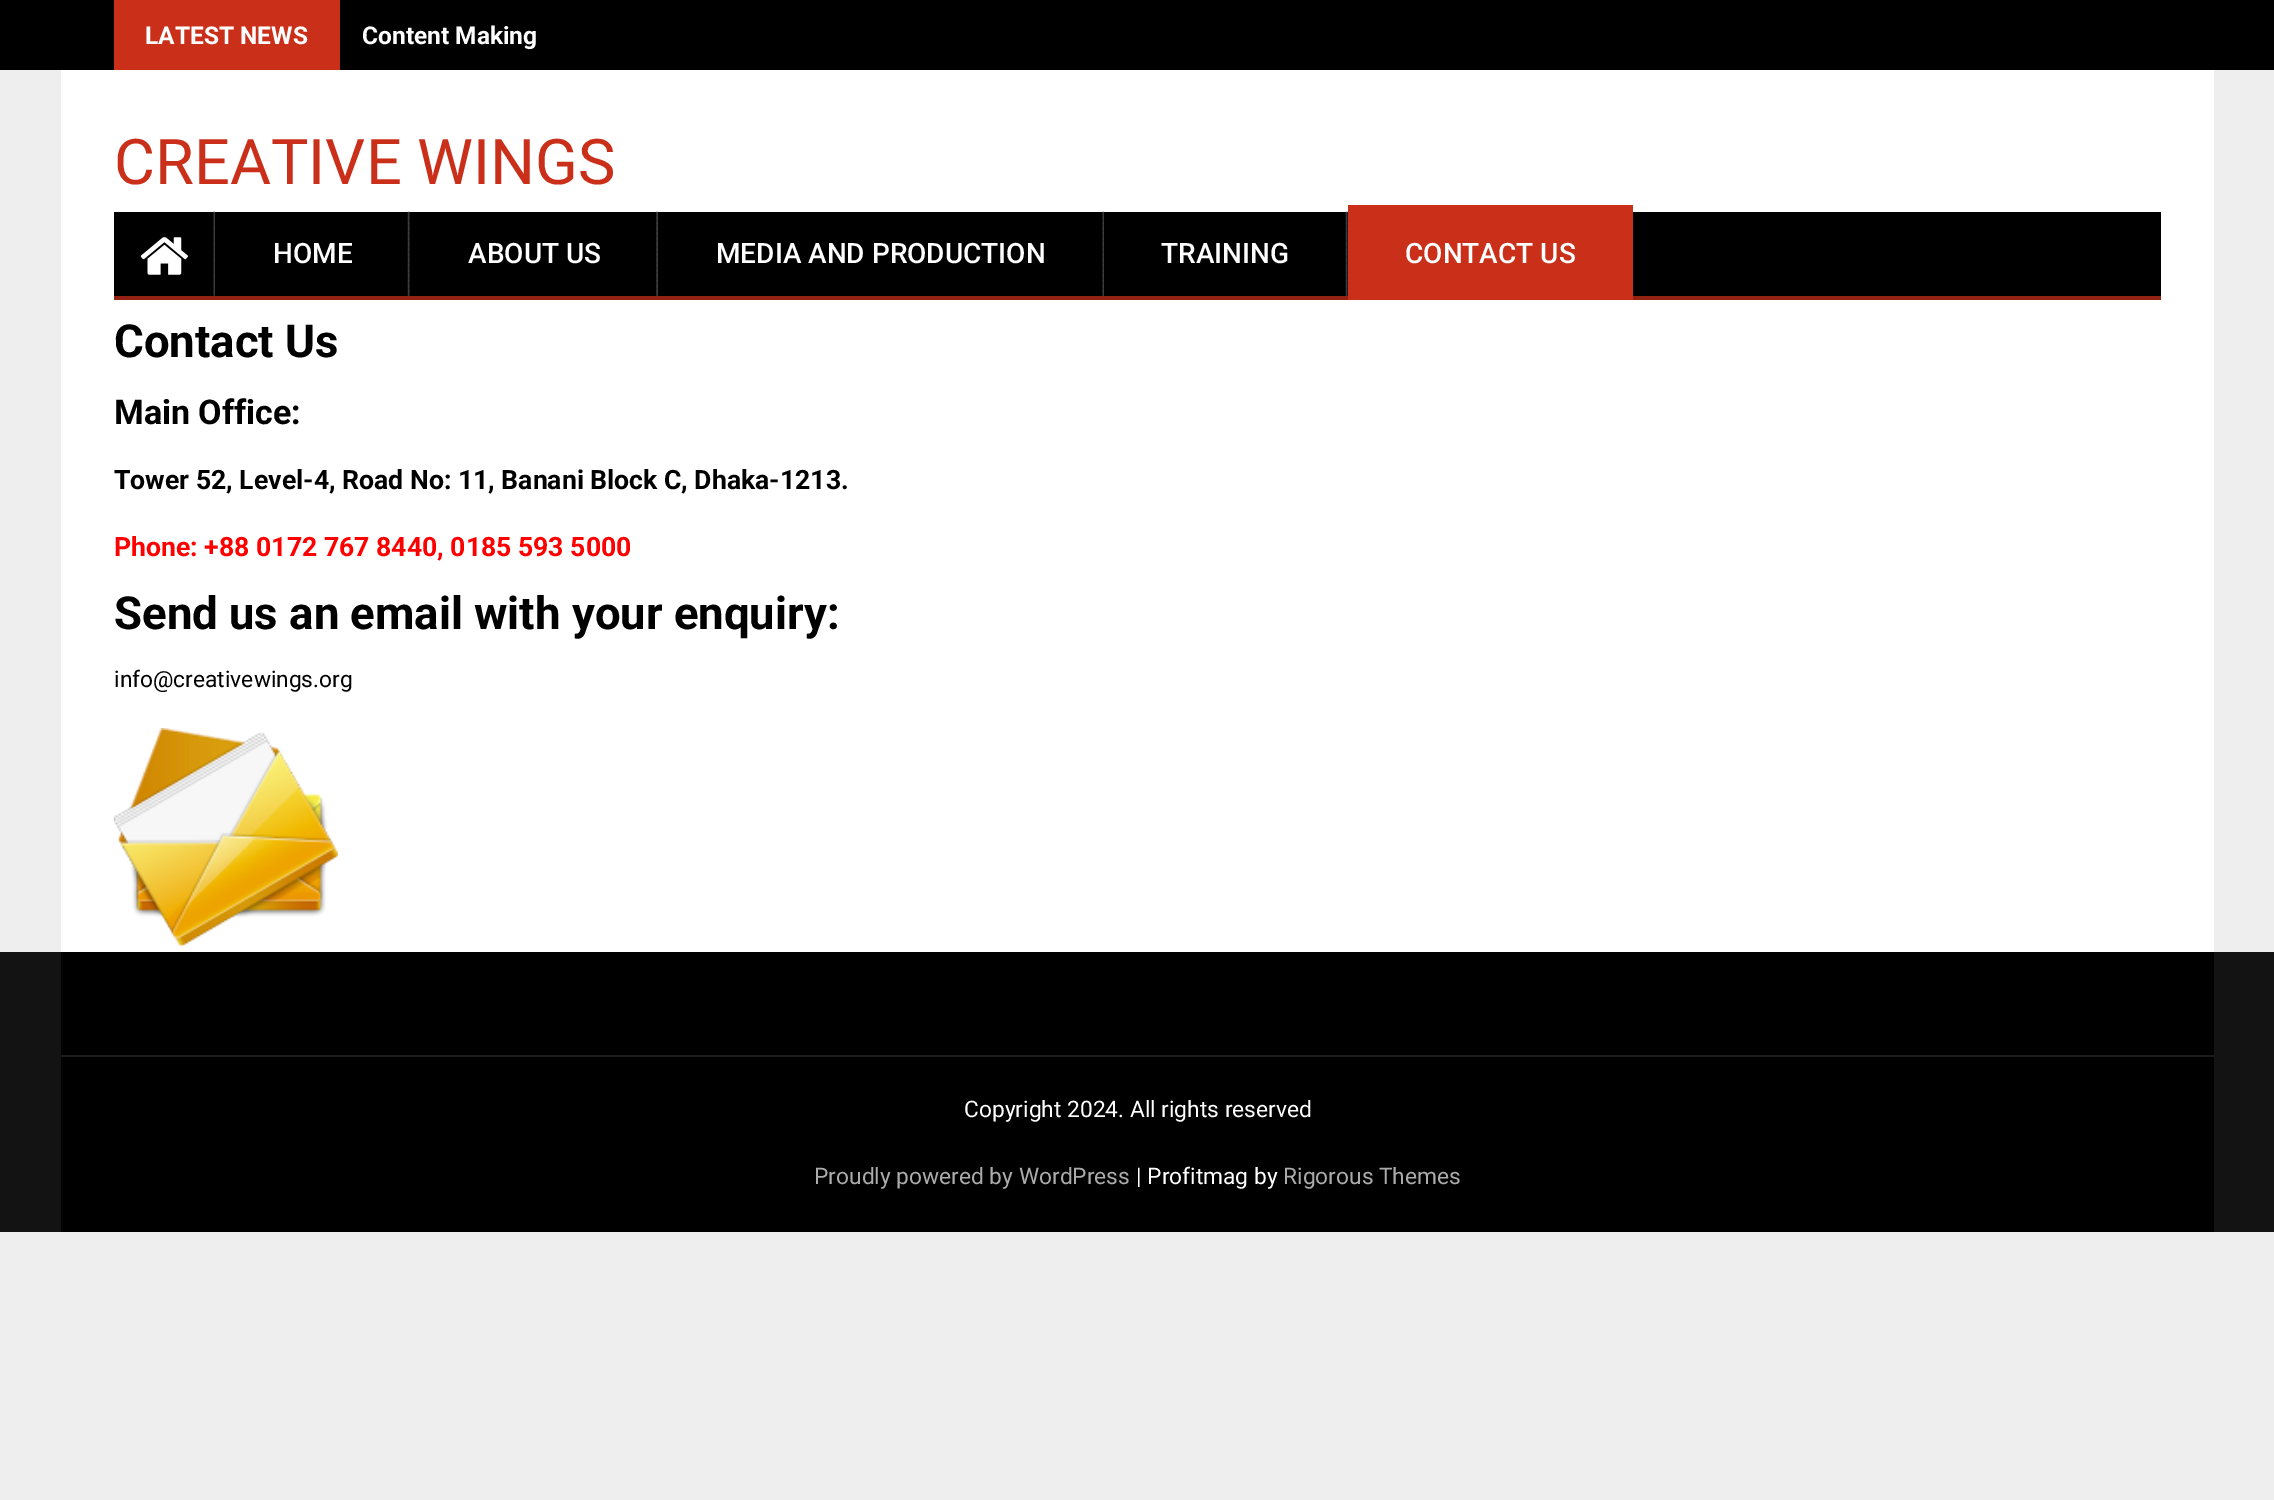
%!PS-Adobe-3.0
%%BoundingBox: 0 0 2274 1500
%%LanguageLevel: 3
%%Pages: 1
%%EndComments
%%BeginProlog
/drawimage { 5 dict begin { /h /w /y /x /name } { exch def } forall
  gsave x y translate w h scale
  w h 8 [w 0 0 h 0 0] name (r) file false 3 colorimage grestore end } def
%%EndProlog
%%BeginSetup
<< /PageSize [2274 1500] >> setpagedevice
%%EndSetup
%%Page: 1 1
0 1500 translate 1 -1 scale
4 setmiterlimit
0.933 0.933 0.937 setrgbcolor
0 0 2274 1500 rectfill
0 setgray
0 0 2274 70 rectfill
0.792 0.184 0.102 setrgbcolor
114 0 226 70 rectfill
1 setgray
61 70 2153 882 rectfill
0 setgray
114 212 2047 84 rectfill
0.576 0.133 0.075 setrgbcolor
114 296 2047 4 rectfill
(images/1.raw) 213 211 3 85 drawimage
(images/2.raw) 140 237 48 38 drawimage
0 setgray
215 212 1 84 rectfill
(images/3.raw) 407 211 3 85 drawimage
(images/4.raw) 656 211 2 85 drawimage
(images/5.raw) 1102 211 3 85 drawimage
1104 212 1 84 rectfill
(images/3.raw) 1345 211 3 85 drawimage
0.792 0.184 0.102 setrgbcolor
1348 205 285 95 rectfill
(images/6.raw) 113 728 225 219 drawimage
0.075 setgray
0 952 2274 280 rectfill
0 setgray
61 952 2153 280 rectfill
0.11 setgray
61 1055 2153 2 rectfill
/Roboto-Bold [24.5 0 0 -24.5 0 0] selectfont
1 setgray
145 44 moveto (LATEST NEWS) show
362 44 moveto (Content Making) show
/Roboto-Regular [63 0 0 -63 0 0] selectfont
0.792 0.184 0.102 setrgbcolor
114 184 moveto (CREATIVE WINGS) show
/Roboto-Medium [28 0 0 -28 0 0] selectfont
1 setgray
273 263 moveto (HOME) show
468 263 moveto (ABOUT US) show
716 263 moveto (MEDIA AND PRODUCTION) show
1161 263 moveto (TRAINING) show
1405 263 moveto (CONTACT US) show
/Roboto-Bold [45.5 0 0 -45.5 0 0] selectfont
0 setgray
114 357 moveto (Contact Us) show
/Roboto-Bold [34 0 0 -34 0 0] selectfont
114 424 moveto (Main Office:) show
/Roboto-Bold [26.6 0 0 -26.6 0 0] selectfont
114 489 moveto (Tower 52, Level-4, Road No: 11, Banani Block C, Dhaka-1213.) show
1 0 0 setrgbcolor
114 556 moveto (Phone: +88 0172 767 8440, 0185 593 5000) show
/Roboto-Bold [45.5 0 0 -45.5 0 0] selectfont
0 setgray
114 629 moveto (Send us an email with your enquiry:) show
/Roboto-Regular [22.75 0 0 -22.75 0 0] selectfont
114 687 moveto (info@creativewings.org) show
1 setgray
964 1117 moveto (Copyright 2024. All rights reserved) show
0.671 setgray
814 1184 moveto (Proudly powered by WordPress) show
1 setgray
1136 1184 moveto (| Profitmag by) show
0.671 setgray
1283 1184 moveto (Rigorous Themes) show
showpage
%%EOF
